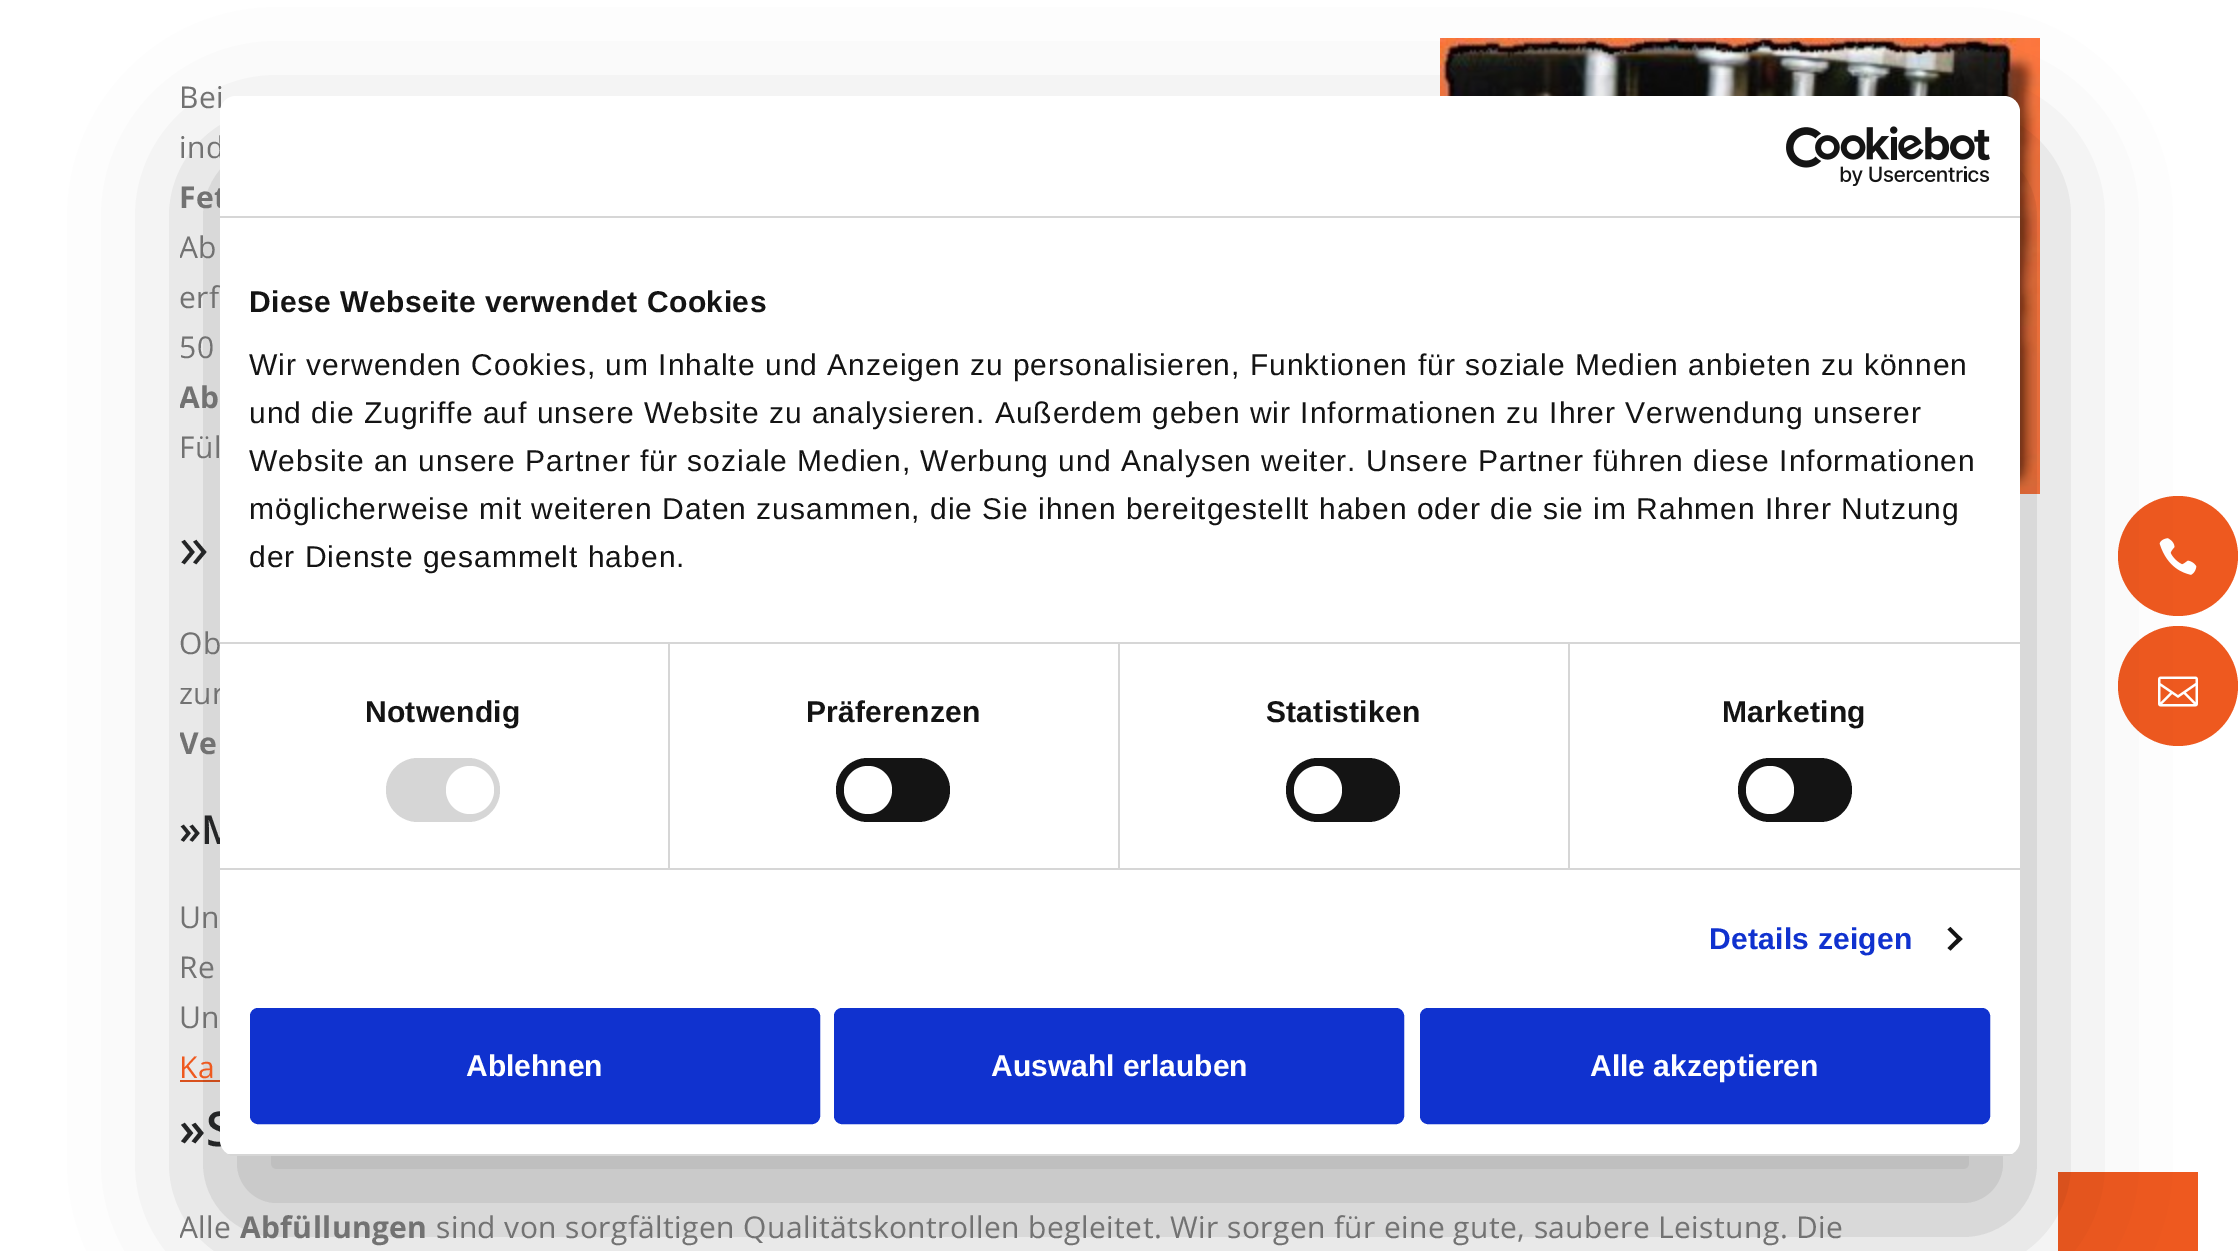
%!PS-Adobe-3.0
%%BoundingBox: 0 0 2238 1251
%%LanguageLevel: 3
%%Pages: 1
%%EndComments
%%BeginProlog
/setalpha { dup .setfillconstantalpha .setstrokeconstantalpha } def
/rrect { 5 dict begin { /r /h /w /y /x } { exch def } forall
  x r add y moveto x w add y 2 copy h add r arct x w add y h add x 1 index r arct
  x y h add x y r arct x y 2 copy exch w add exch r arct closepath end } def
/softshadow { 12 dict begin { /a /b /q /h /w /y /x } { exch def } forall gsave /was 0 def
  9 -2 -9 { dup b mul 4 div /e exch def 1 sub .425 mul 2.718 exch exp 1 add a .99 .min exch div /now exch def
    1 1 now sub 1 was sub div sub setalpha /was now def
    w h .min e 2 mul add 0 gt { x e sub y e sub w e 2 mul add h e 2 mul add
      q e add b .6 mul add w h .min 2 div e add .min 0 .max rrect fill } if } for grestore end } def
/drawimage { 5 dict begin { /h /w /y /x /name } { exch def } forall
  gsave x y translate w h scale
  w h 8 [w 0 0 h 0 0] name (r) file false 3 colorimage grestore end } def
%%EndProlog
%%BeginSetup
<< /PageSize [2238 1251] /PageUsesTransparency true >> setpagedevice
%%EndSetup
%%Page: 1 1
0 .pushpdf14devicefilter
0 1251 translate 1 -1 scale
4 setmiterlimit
1 setgray
0 0 2238 1251 rectfill
(images/1.raw) 1440 38 600 456 drawimage
0.933 0.349 0.122 setrgbcolor
180 1080 40 2 rectfill
newpath 2178 496 moveto 2211 496 2238 523 2238 556 curveto 2238 589 2211 616 2178 616 curveto 2145 616 2118 589 2118 556 curveto 2118 523 2145 496 2178 496 curveto closepath fill
(images/3.raw) 2159 538 38 37 drawimage
newpath 2178 626 moveto 2211 626 2238 653 2238 686 curveto 2238 719 2211 746 2178 746 curveto 2145 746 2118 719 2118 686 curveto 2118 653 2145 626 2178 626 curveto closepath fill
(images/4.raw) 2158 676 40 31 drawimage
2058 1172 140 79 rectfill
0 setgray
220 160 1800 1060 16 68 0.3 softshadow
/OpenSans-Regular [30 0 0 -30 0 0] selectfont
0.447 setgray
179 108 moveto 0.4 0 (Bei) ashow
179 158 moveto 0.4 0 (ind) ashow
/OpenSans-Bold [30 0 0 -30 0 0] selectfont
179 208 moveto 0.4 0 (Fet) ashow
gsave
180 0 1880 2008 rectclip
/OpenSans-Regular [30 0 0 -30 0 0] selectfont
179 258 moveto 0.4 0 (Ab) ashow
grestore
/OpenSans-Regular [30 0 0 -30 0 0] selectfont
179 308 moveto 0.4 0 (erf) ashow
179 358 moveto 0.4 0 (50) ashow
gsave
180 0 1880 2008 rectclip
/OpenSans-Bold [30 0 0 -30 0 0] selectfont
179 408 moveto 0.4 0 (Ab) ashow
grestore
179 458 moveto 0.4 0 (Fül) ashow
/OpenSans-Regular [60 0 0 -60 0 0] selectfont
0.141 0.145 0.149 setrgbcolor
179 568 moveto (») show
/OpenSans-Regular [30 0 0 -30 0 0] selectfont
0.447 setgray
179 654 moveto 0.4 0 (Ob) ashow
179 704 moveto 0.4 0 (zur) ashow
gsave
180 0 1880 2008 rectclip
/OpenSans-Bold [30 0 0 -30 0 0] selectfont
179 754 moveto 0.4 0 (Ve) ashow
grestore
/OpenSans-SemiBold [40 0 0 -40 0 0] selectfont
0.141 0.145 0.149 setrgbcolor
179 844 moveto (»M) show
/OpenSans-Regular [30 0 0 -30 0 0] selectfont
0.447 setgray
179 928 moveto 0.4 0 (Un) ashow
179 978 moveto 0.4 0 (Re) ashow
179 1028 moveto 0.4 0 (Un) ashow
0.933 0.349 0.122 setrgbcolor
179 1078 moveto 0.4 0 (Ka) ashow
/OpenSans-SemiBold [48 0 0 -48 0 0] selectfont
0.141 0.145 0.149 setrgbcolor
179 1146 moveto (»S) show
gsave
180 0 1880 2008 rectclip
/OpenSans-Regular [30 0 0 -30 0 0] selectfont
0.447 setgray
179 1238 moveto 0.4 0 (Alle) ashow
grestore
/OpenSans-Bold [30 0 0 -30 0 0] selectfont
0.447 setgray
240 1238 moveto 0.4 0 (Abfüllungen) ashow
/OpenSans-Regular [30 0 0 -30 0 0] selectfont
436 1238 moveto 0.4 0 (sind von sorgfältigen Qualitätskontrollen begleitet. Wir sorgen für eine gute, saubere Leistung. Die) ashow
1 setgray
220 96 1800 1060 16 rrect fill
0.839 setgray
220 216 1800 2 rectfill
(images/2.raw) 1786 126 204 60 drawimage
220 642 1800 2 rectfill
/LiberationSans-Bold [30 0 0 -30 0 0] selectfont
0.078 setgray
249 312 moveto 0.5 0 (Diese Webseite verwendet Cookies) ashow
/LiberationSans-Regular [30 0 0 -30 0 0] selectfont
249 375 moveto 1 0 (Wir verwenden Cookies, um Inhalte und Anzeigen zu personalisieren, Funktionen für soziale Medien anbieten zu können) ashow
249 423 moveto 1 0 (und die Zugriffe auf unsere Website zu analysieren. Außerdem geben wir Informationen zu Ihrer Verwendung unserer) ashow
249 471 moveto 1 0 (Website an unsere Partner für soziale Medien, Werbung und Analysen weiter. Unsere Partner führen diese Informationen) ashow
249 519 moveto 1 0 (möglicherweise mit weiteren Daten zusammen, die Sie ihnen bereitgestellt haben oder die sie im Rahmen Ihrer Nutzung) ashow
249 567 moveto 1 0 (der Dienste gesammelt haben.) ashow
0.839 setgray
220 868 1800 2 rectfill
668 644 2 224 rectfill
/LiberationSans-Bold [30 0 0 -30 0 0] selectfont
0.078 setgray
365 722 moveto 0.25 0 (Notwendig) ashow
0.839 setgray
386 758 114 64 32 rrect fill
1 setgray
newpath 470 790 24 0 360 arc closepath fill
0.839 setgray
1118 644 2 224 rectfill
0.078 setgray
806 722 moveto 0.25 0 (Präferenzen) ashow
836 758 114 64 32 rrect fill
1 setgray
newpath 868 790 24 0 360 arc closepath fill
0.839 setgray
1568 644 2 224 rectfill
0.078 setgray
1266 722 moveto 0.25 0 (Statistiken) ashow
1286 758 114 64 32 rrect fill
1 setgray
newpath 1318 790 24 0 360 arc closepath fill
0.078 setgray
1722 722 moveto 0.25 0 (Marketing) ashow
1738 758 114 64 32 rrect fill
1 setgray
newpath 1770 790 24 0 360 arc closepath fill
0.063 0.196 0.812 setrgbcolor
1709 949 moveto 0.25 0 (Details zeigen) ashow
0.078 setgray
newpath 1950.5 927 moveto 1962.5 939 lineto 1959.5 941.5 lineto 1947.5 929.5 lineto closepath fill
newpath 1959.5 936 moveto 1962.5 939 lineto 1950.5 950.5 lineto 1947.5 948 lineto closepath fill
gsave
220 96 1800 1060 16 rrect clip newpath
0.839 setgray
220 1154 1800 2 rectfill
grestore
0.063 0.196 0.812 setrgbcolor
252 1010 566 112 6 rrect gsave fill grestore
4 setlinewidth
stroke
1 setgray
466 1076 moveto (Ablehnen) show
0.063 0.196 0.812 setrgbcolor
836 1010 566 112 6 rrect gsave fill grestore
stroke
1 setgray
991 1076 moveto (Auswahl erlauben) show
0.063 0.196 0.812 setrgbcolor
1422 1010 566 112 6 rrect gsave fill grestore
stroke
1 setgray
1590 1076 moveto (Alle akzeptieren) show
.poppdf14devicefilter showpage
%%EOF
